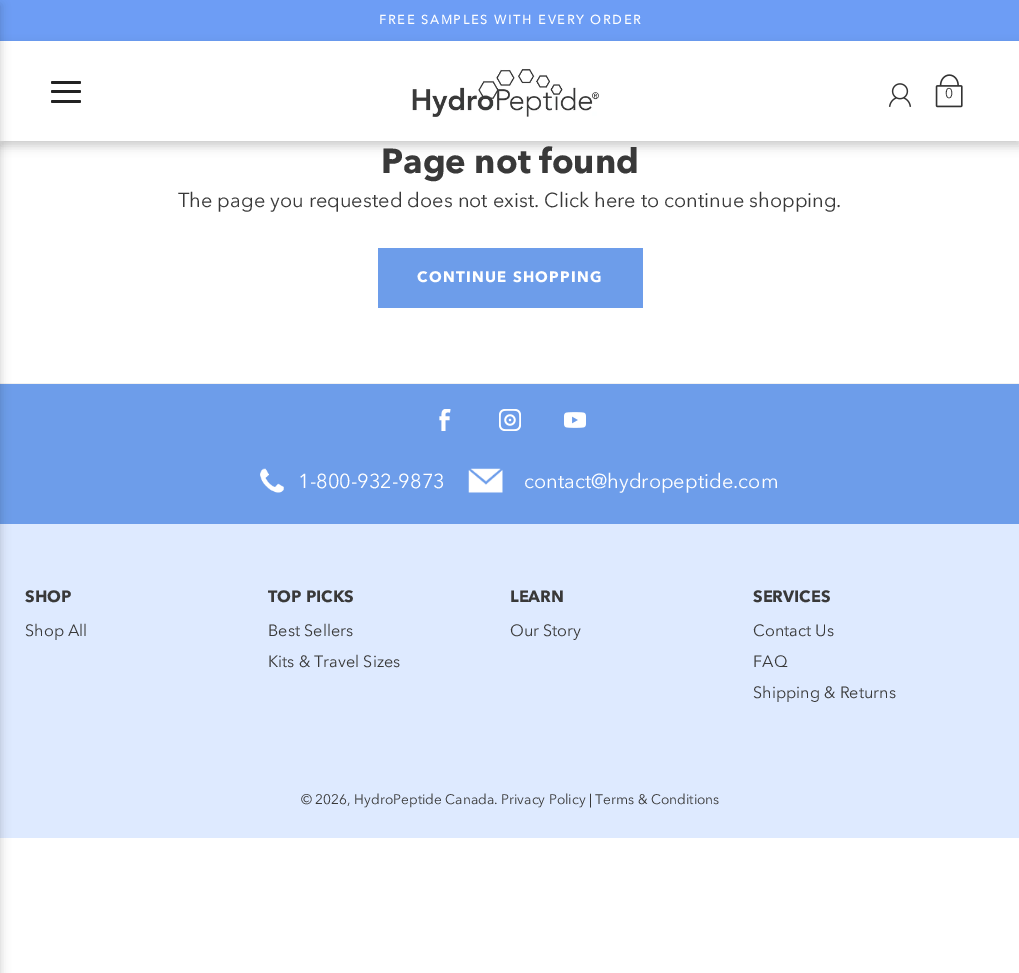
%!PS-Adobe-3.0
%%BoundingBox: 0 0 1019 973
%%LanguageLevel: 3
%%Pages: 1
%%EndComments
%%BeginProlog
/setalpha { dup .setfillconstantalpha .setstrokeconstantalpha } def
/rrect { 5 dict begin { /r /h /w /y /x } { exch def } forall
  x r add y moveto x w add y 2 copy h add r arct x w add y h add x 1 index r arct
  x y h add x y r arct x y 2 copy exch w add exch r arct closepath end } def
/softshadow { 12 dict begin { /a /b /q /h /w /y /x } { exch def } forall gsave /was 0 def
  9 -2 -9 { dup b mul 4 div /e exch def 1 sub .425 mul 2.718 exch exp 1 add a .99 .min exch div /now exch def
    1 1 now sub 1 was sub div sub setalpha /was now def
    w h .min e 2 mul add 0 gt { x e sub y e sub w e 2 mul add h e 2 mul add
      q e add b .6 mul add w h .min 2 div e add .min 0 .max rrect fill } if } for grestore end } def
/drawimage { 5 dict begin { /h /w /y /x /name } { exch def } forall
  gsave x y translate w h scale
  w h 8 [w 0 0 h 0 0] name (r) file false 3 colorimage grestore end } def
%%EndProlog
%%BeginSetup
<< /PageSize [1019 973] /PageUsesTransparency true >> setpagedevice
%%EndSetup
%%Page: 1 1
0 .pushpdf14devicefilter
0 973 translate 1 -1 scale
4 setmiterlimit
1 setgray
0 0 1019 973 rectfill
0.427 0.616 0.961 setrgbcolor
0 0 1019 41 rectfill
0 setgray
0 46 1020 100 0 5 0.2 softshadow
1 setgray
0 41 1019 100 rectfill
0.427 0.616 0.918 setrgbcolor
0 384 1019 140 rectfill
0.945 setgray
0 383 1019 1 rectfill
0.871 0.918 1 setrgbcolor
0 524 1019 314 rectfill
0 setgray
-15 5 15 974 0 5 0.2 softshadow
(images/1.raw) 412 69 187 48 drawimage
0.133 setgray
51 90 30 3 1.5 rrect fill
51 81 30 3 1.5 rrect fill
51 100 30 3 1.5 rrect fill
(images/2.raw) 888 83 24 24 drawimage
(images/3.raw) 935 74 28 34 drawimage
0.427 0.616 0.918 setrgbcolor
378 248 265 60 rectfill
(images/4.raw) 439 409 12 22 drawimage
(images/5.raw) 499 409 22 22 drawimage
(images/6.raw) 564 412 22 16 drawimage
(images/7.raw) 260 468 24 25 drawimage
(images/8.raw) 468 468 35 25 drawimage
/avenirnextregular-Bold [12.5 0 0 -12.5 0 0] selectfont
1 setgray
379 24 moveto 1.9 0 (FREE SAMPLES WITH EVERY ORDER) ashow
/avenirnextregular-Regular [14 0 0 -14 0 0] selectfont
0.2 setgray
945 98 moveto (0) show
/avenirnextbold-Bold [34.5 0 0 -34.5 0 0] selectfont
0.224 setgray
381 173 moveto (Page not found) show
/avenirnextregular-Regular [20 0 0 -20 0 0] selectfont
178 207 moveto (The page you requested does not exist. Click here to continue shopping.) show
/avenirnextbold-Bold [15 0 0 -15 0 0] selectfont
1 setgray
417 282 moveto 1.25 0 (CONTINUE SHOPPING) ashow
/avenirnextregular-Regular [20 0 0 -20 0 0] selectfont
298 488 moveto (1-800-932-9873) show
524 488 moveto (contact@hydropeptide.com) show
/avenirnextbold-Bold [16.25 0 0 -16.25 0 0] selectfont
0.224 setgray
25 602 moveto (SHOP) show
/avenirnextregular-Regular [16.25 0 0 -16.25 0 0] selectfont
25 636 moveto (Shop All) show
/avenirnextbold-Bold [16.25 0 0 -16.25 0 0] selectfont
268 602 moveto (TOP PICKS) show
/avenirnextregular-Regular [16.25 0 0 -16.25 0 0] selectfont
268 636 moveto (Best Sellers) show
268 667 moveto (Kits & Travel Sizes) show
/avenirnextbold-Bold [16.25 0 0 -16.25 0 0] selectfont
510 602 moveto (LEARN) show
/avenirnextregular-Regular [16.25 0 0 -16.25 0 0] selectfont
510 636 moveto (Our Story) show
/avenirnextbold-Bold [16.25 0 0 -16.25 0 0] selectfont
753 602 moveto (SERVICES) show
/avenirnextregular-Regular [16.25 0 0 -16.25 0 0] selectfont
753 636 moveto (Contact Us) show
753 667 moveto (FAQ) show
753 698 moveto (Shipping & Returns) show
/avenirnextregular-Regular [13.75 0 0 -13.75 0 0] selectfont
301 804 moveto (© 2026, HydroPeptide Canada. Privacy Policy | Terms & Conditions) show
.poppdf14devicefilter showpage
%%EOF
